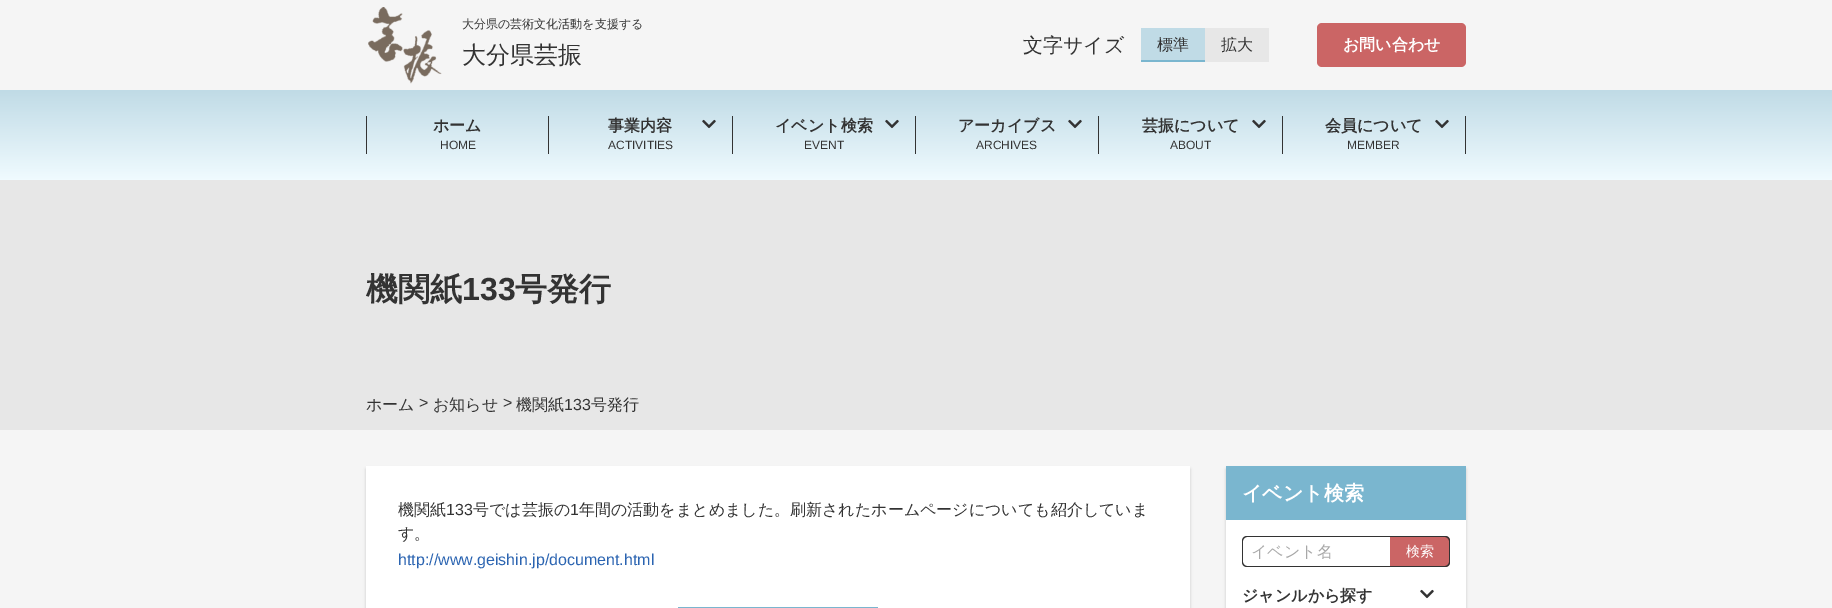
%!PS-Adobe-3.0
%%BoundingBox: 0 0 1832 608
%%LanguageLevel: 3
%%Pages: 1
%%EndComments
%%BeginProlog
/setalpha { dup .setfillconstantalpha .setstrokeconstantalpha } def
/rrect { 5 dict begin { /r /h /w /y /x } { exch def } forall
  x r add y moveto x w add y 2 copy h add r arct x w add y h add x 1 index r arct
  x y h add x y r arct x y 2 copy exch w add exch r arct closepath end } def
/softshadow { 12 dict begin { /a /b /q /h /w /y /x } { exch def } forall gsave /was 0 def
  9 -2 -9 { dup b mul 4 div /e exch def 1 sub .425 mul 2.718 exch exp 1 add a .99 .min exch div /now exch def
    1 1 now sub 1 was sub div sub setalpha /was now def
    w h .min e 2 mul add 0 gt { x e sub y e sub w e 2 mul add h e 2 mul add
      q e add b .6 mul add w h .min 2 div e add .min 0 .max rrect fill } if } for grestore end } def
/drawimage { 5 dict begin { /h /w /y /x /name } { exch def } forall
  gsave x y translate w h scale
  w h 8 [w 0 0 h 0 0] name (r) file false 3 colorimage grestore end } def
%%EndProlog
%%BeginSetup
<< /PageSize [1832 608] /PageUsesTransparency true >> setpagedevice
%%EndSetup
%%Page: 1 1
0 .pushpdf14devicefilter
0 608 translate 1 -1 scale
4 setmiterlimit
0.961 setgray
0 0 1832 608 rectfill
(images/1.raw) 368 7 74 77 drawimage
0.753 0.859 0.902 setrgbcolor
1141 28 64 32 rectfill
0.478 0.714 0.812 setrgbcolor
1141 60 64 2 rectfill
0.906 setgray
1205 28 64 34 rectfill
0.796 0.396 0.396 setrgbcolor
1317 23 149 44 5 rrect fill
gsave newpath 0 90 moveto 1832 90 lineto 1832 180 lineto 0 180 lineto closepath clip newpath
<< /ShadingType 2 /ColorSpace /DeviceRGB /Coords [916 90 916 180] /Extend [true true] /Function << /FunctionType 2 /Domain [0 1] /C0 [0.753 0.859 0.902] /C1 [0.941 0.984 1] /N 1 >> >> shfill grestore
0.2 setgray
548 116 1 38 rectfill
366 116 1 38 rectfill
732 116 1 38 rectfill
(images/2.raw) 702 119 14 10 drawimage
915 116 1 38 rectfill
(images/2.raw) 885 119 14 10 drawimage
1098 116 1 38 rectfill
(images/2.raw) 1068 119 14 10 drawimage
1282 116 1 38 rectfill
(images/2.raw) 1252 119 14 10 drawimage
1465 116 1 38 rectfill
(images/2.raw) 1435 119 14 10 drawimage
0.906 setgray
0 180 1832 250 rectfill
0 setgray
366 469 824 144 0 1.5 0.16 softshadow
1 setgray
366 466 824 142 rectfill
0.478 0.714 0.812 setrgbcolor
678 607 200 1 rectfill
0 setgray
1226 469 240 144 0 1.5 0.16 softshadow
1 setgray
1226 520 240 88 rectfill
0.478 0.714 0.812 setrgbcolor
1226 466 240 54 rectfill
0.2 setgray
newpath 1247 536 moveto 1390 536 lineto 1390 567 lineto 1247 567 lineto 1244 567 1242 565 1242 562 curveto 1242 541 lineto 1242 538 1244 536 1247 536 curveto closepath 1247 537 moveto 1390 537 lineto 1390 566 lineto 1247 566 lineto 1245 566 1243 564 1243 562 curveto 1243 541 lineto 1243 539 1245 537 1247 537 curveto closepath eofill
0.796 0.396 0.396 setrgbcolor
newpath 1390 536 moveto 1445 536 lineto 1448 536 1450 538 1450 541 curveto 1450 562 lineto 1450 565 1448 567 1445 567 curveto 1390 567 lineto closepath fill
0.2 setgray
newpath 1390 536 moveto 1445 536 lineto 1448 536 1450 538 1450 541 curveto 1450 562 lineto 1450 565 1448 567 1445 567 curveto 1390 567 lineto closepath 1390 537 moveto 1445 537 lineto 1447 537 1449 539 1449 541 curveto 1449 562 lineto 1449 564 1447 566 1445 566 curveto 1390 566 lineto closepath eofill
(images/3.raw) 1420 589 14 10 drawimage
/WenQuanYiZenHei-Medium [12 0 0 -12 0 0] selectfont
462 28 moveto (大分県の芸術文化活動を支援する) show
/WenQuanYiZenHei-Medium [24 0 0 -24 0 0] selectfont
462 63 moveto (大分県芸振) show
/WenQuanYiZenHei-Medium [20 0 0 -20 0 0] selectfont
1023 52 moveto (文字サイズ) show
/WenQuanYiZenHei-Medium [16 0 0 -16 0 0] selectfont
1157 50 moveto (標準) show
1221 50 moveto (拡大) show
/WenQuanYiZenHei-Bold [16 0 0 -16 0 0] selectfont
1 setgray
1343 50 moveto (お問い合わせ) show
0.2 setgray
433 131 moveto (ホーム) show
/LiberationSans-Regular [12 0 0 -12 0 0] selectfont
440 149 moveto (HOME) show
/WenQuanYiZenHei-Bold [16 0 0 -16 0 0] selectfont
608 131 moveto (事業内容) show
/LiberationSans-Regular [12 0 0 -12 0 0] selectfont
608 149 moveto (ACTIVITIES) show
/WenQuanYiZenHei-Bold [16 0 0 -16 0 0] selectfont
775 131 moveto (イベント検索) show
/LiberationSans-Regular [12 0 0 -12 0 0] selectfont
804 149 moveto (EVENT) show
/WenQuanYiZenHei-Bold [16 0 0 -16 0 0] selectfont
958 131 moveto (アーカイブス) show
/LiberationSans-Regular [12 0 0 -12 0 0] selectfont
976 149 moveto (ARCHIVES) show
/WenQuanYiZenHei-Bold [16 0 0 -16 0 0] selectfont
1142 131 moveto (芸振について) show
/LiberationSans-Regular [12 0 0 -12 0 0] selectfont
1170 149 moveto (ABOUT) show
/WenQuanYiZenHei-Bold [16 0 0 -16 0 0] selectfont
1325 131 moveto (会員について) show
/LiberationSans-Regular [12 0 0 -12 0 0] selectfont
1347 149 moveto (MEMBER) show
/WenQuanYiZenHei-Bold [32 0 0 -32 0 0] selectfont
366 300 moveto (機関紙) show
/LiberationSans-Bold [32 0 0 -32 0 0] selectfont
462 300 moveto (133) show
/WenQuanYiZenHei-Bold [32 0 0 -32 0 0] selectfont
515 300 moveto (号発行) show
/WenQuanYiZenHei-Medium [16 0 0 -16 0 0] selectfont
366 410 moveto (ホーム) show
/LiberationSans-Regular [16 0 0 -16 0 0] selectfont
419 408 moveto (>) show
/WenQuanYiZenHei-Medium [16 0 0 -16 0 0] selectfont
433 410 moveto (お知らせ) show
/LiberationSans-Regular [16 0 0 -16 0 0] selectfont
503 408 moveto (>) show
/WenQuanYiZenHei-Medium [16 0 0 -16 0 0] selectfont
516 410 moveto (機関紙) show
/LiberationSans-Regular [16 0 0 -16 0 0] selectfont
564 410 moveto (133) show
/WenQuanYiZenHei-Medium [16 0 0 -16 0 0] selectfont
591 410 moveto (号発行) show
398 515 moveto (機関紙) show
/LiberationSans-Regular [16 0 0 -16 0 0] selectfont
446 515 moveto (133) show
/WenQuanYiZenHei-Medium [16 0 0 -16 0 0] selectfont
473 515 moveto (号では芸振の) show
/LiberationSans-Regular [16 0 0 -16 0 0] selectfont
570 515 moveto (1) show
/WenQuanYiZenHei-Medium [16 0 0 -16 0 0] selectfont
579 515 moveto (年間の活動をまとめました。刷新されたホームページについても紹介していま) show
398 539 moveto (す。) show
/LiberationSans-Regular [16 0 0 -16 0 0] selectfont
0.169 0.392 0.694 setrgbcolor
398 565 moveto (http://www.geishin.jp/document.html) show
/WenQuanYiZenHei-Bold [20 0 0 -20 0 0] selectfont
1 setgray
1242 500 moveto (イベント検索) show
/WenQuanYiZenHei-Medium [16 0 0 -16 0 0] selectfont
0.659 setgray
1251 557 moveto (イベント名) show
/WenQuanYiZenHei-Medium [14 0 0 -14 0 0] selectfont
1 setgray
1406 556 moveto (検索) show
/WenQuanYiZenHei-Bold [16 0 0 -16 0 0] selectfont
0.2 setgray
1242 601 moveto (ジャンルから探す) show
.poppdf14devicefilter showpage
%%EOF
